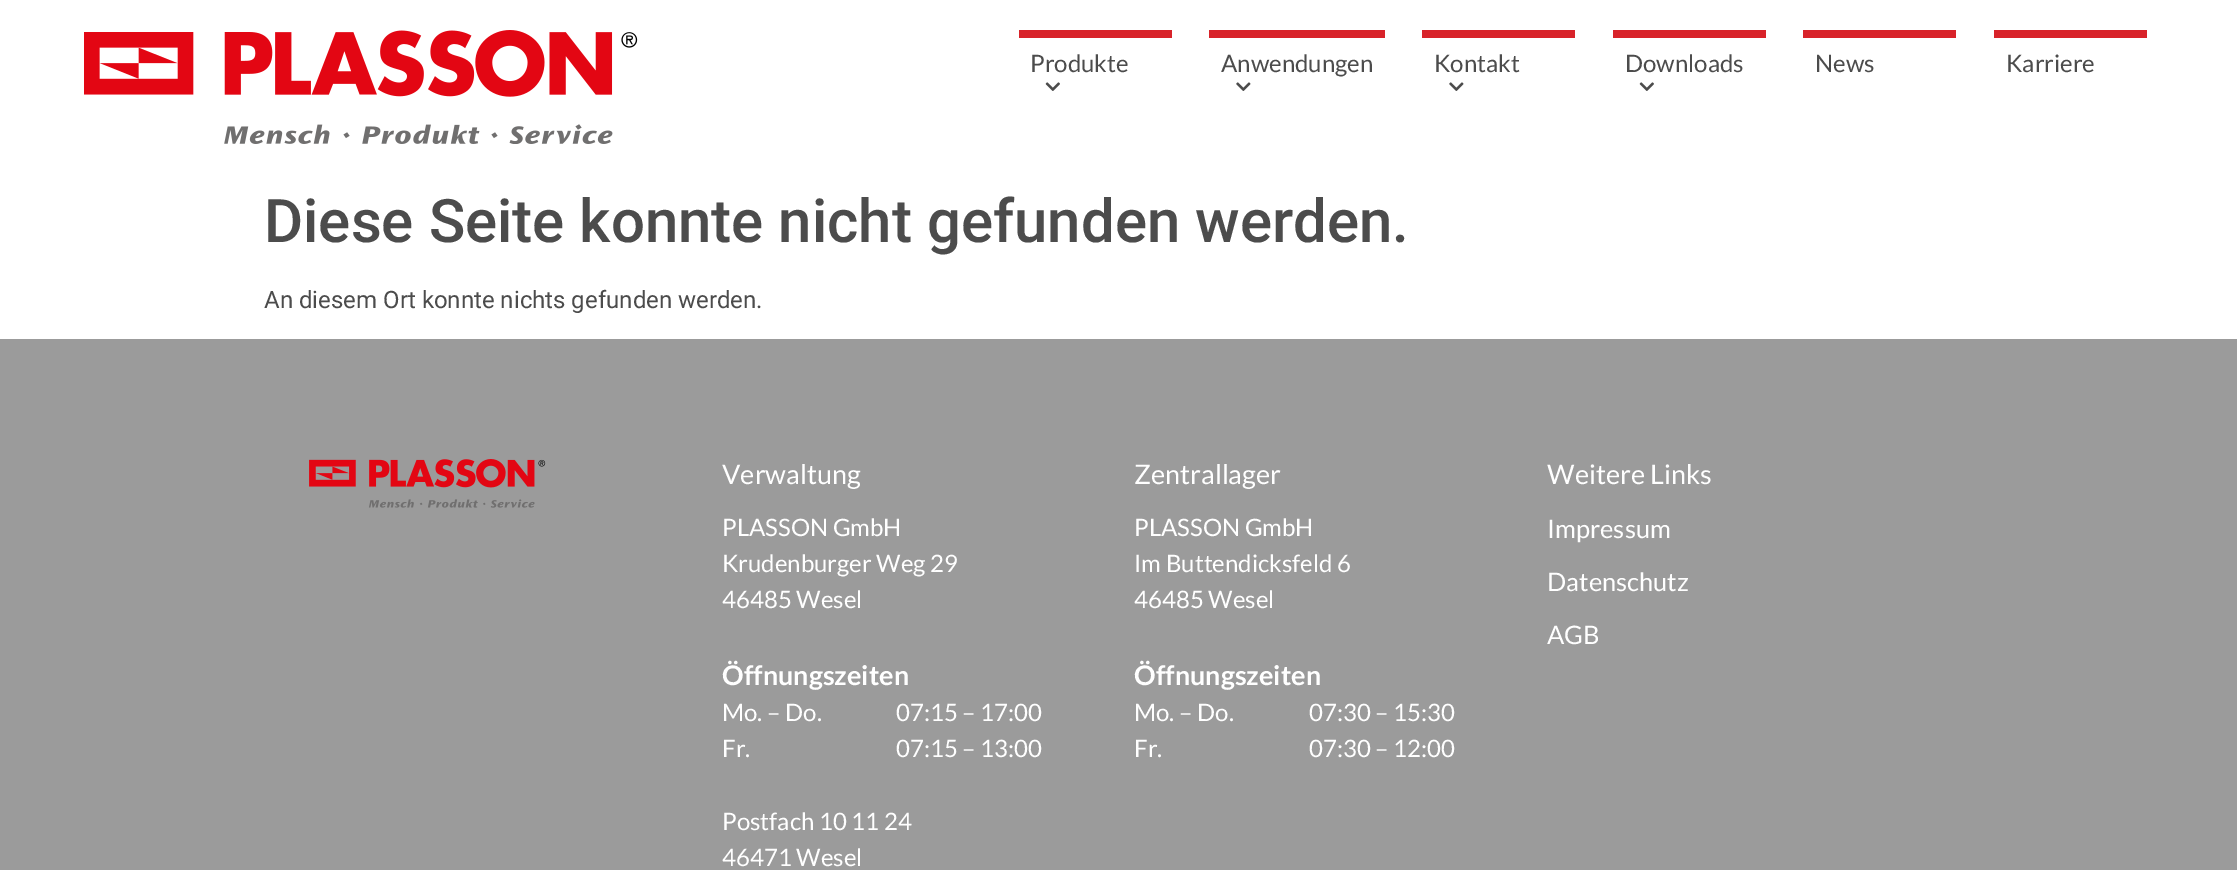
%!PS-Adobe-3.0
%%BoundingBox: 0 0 2237 870
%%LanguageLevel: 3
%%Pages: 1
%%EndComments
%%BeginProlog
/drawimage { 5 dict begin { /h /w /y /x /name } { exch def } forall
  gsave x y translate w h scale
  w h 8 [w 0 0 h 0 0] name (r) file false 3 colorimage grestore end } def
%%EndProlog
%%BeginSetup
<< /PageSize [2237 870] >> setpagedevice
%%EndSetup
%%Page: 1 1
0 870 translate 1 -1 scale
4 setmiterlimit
1 setgray
0 0 2237 870 rectfill
(images/1.raw) 84 30 554 114 drawimage
0.847 0.137 0.165 setrgbcolor
1019 30 153 8 rectfill
(images/2.raw) 1045 82 15 9 drawimage
1209 30 176 8 rectfill
(images/3.raw) 1236 82 15 9 drawimage
1422 30 153 8 rectfill
(images/3.raw) 1449 82 15 9 drawimage
1613 30 153 8 rectfill
(images/2.raw) 1639 82 15 9 drawimage
1803 30 153 8 rectfill
1994 30 153 8 rectfill
0.608 setgray
0 339 2237 531 rectfill
(images/4.raw) 309 459 237 49 drawimage
/Lato-Regular [24 0 0 -24 0 0] selectfont
0.298 setgray
1030 72 moveto (Produkte) show
1221 72 moveto (Anwendungen) show
1434 72 moveto (Kontakt) show
1625 72 moveto (Downloads) show
1815 72 moveto (News) show
2006 72 moveto (Karriere) show
/Roboto-Medium [60 0 0 -60 0 0] selectfont
264 242 moveto (Diese Seite konnte nicht gefunden werden.) show
/Roboto-Regular [24 0 0 -24 0 0] selectfont
264 308 moveto (An diesem Ort konnte nichts gefunden werden.) show
/Lato-Regular [27 0 0 -27 0 0] selectfont
1 setgray
722 484 moveto (Verwaltung) show
/Lato-Regular [24 0 0 -24 0 0] selectfont
722 536 moveto (PLASSON GmbH) show
722 572 moveto (Krudenburger Weg 29) show
722 608 moveto (46485 Wesel) show
/Lato-Bold [27 0 0 -27 0 0] selectfont
722 685 moveto (Öffnungszeiten) show
/Lato-Regular [24 0 0 -24 0 0] selectfont
722 721 moveto (Mo. – Do.) show
722 757 moveto (Fr.) show
896 721 moveto (07:15 – 17:00) show
896 757 moveto (07:15 – 13:00) show
722 830 moveto (Postfach 10 11 24) show
722 866 moveto (46471 Wesel) show
/Lato-Regular [27 0 0 -27 0 0] selectfont
1134 484 moveto (Zentrallager) show
/Lato-Regular [24 0 0 -24 0 0] selectfont
1134 536 moveto (PLASSON GmbH) show
1134 572 moveto (Im Buttendicksfeld 6) show
1134 608 moveto (46485 Wesel) show
/Lato-Bold [27 0 0 -27 0 0] selectfont
1134 685 moveto (Öffnungszeiten) show
/Lato-Regular [24 0 0 -24 0 0] selectfont
1134 721 moveto (Mo. – Do.) show
1134 757 moveto (Fr.) show
1309 721 moveto (07:30 – 15:30) show
1309 757 moveto (07:30 – 12:00) show
/Lato-Regular [27 0 0 -27 0 0] selectfont
1547 484 moveto (Weitere Links) show
/Lato-Regular [25.5 0 0 -25.5 0 0] selectfont
1547 538 moveto (Impressum) show
1547 591 moveto (Datenschutz) show
1547 644 moveto (AGB) show
showpage
%%EOF
